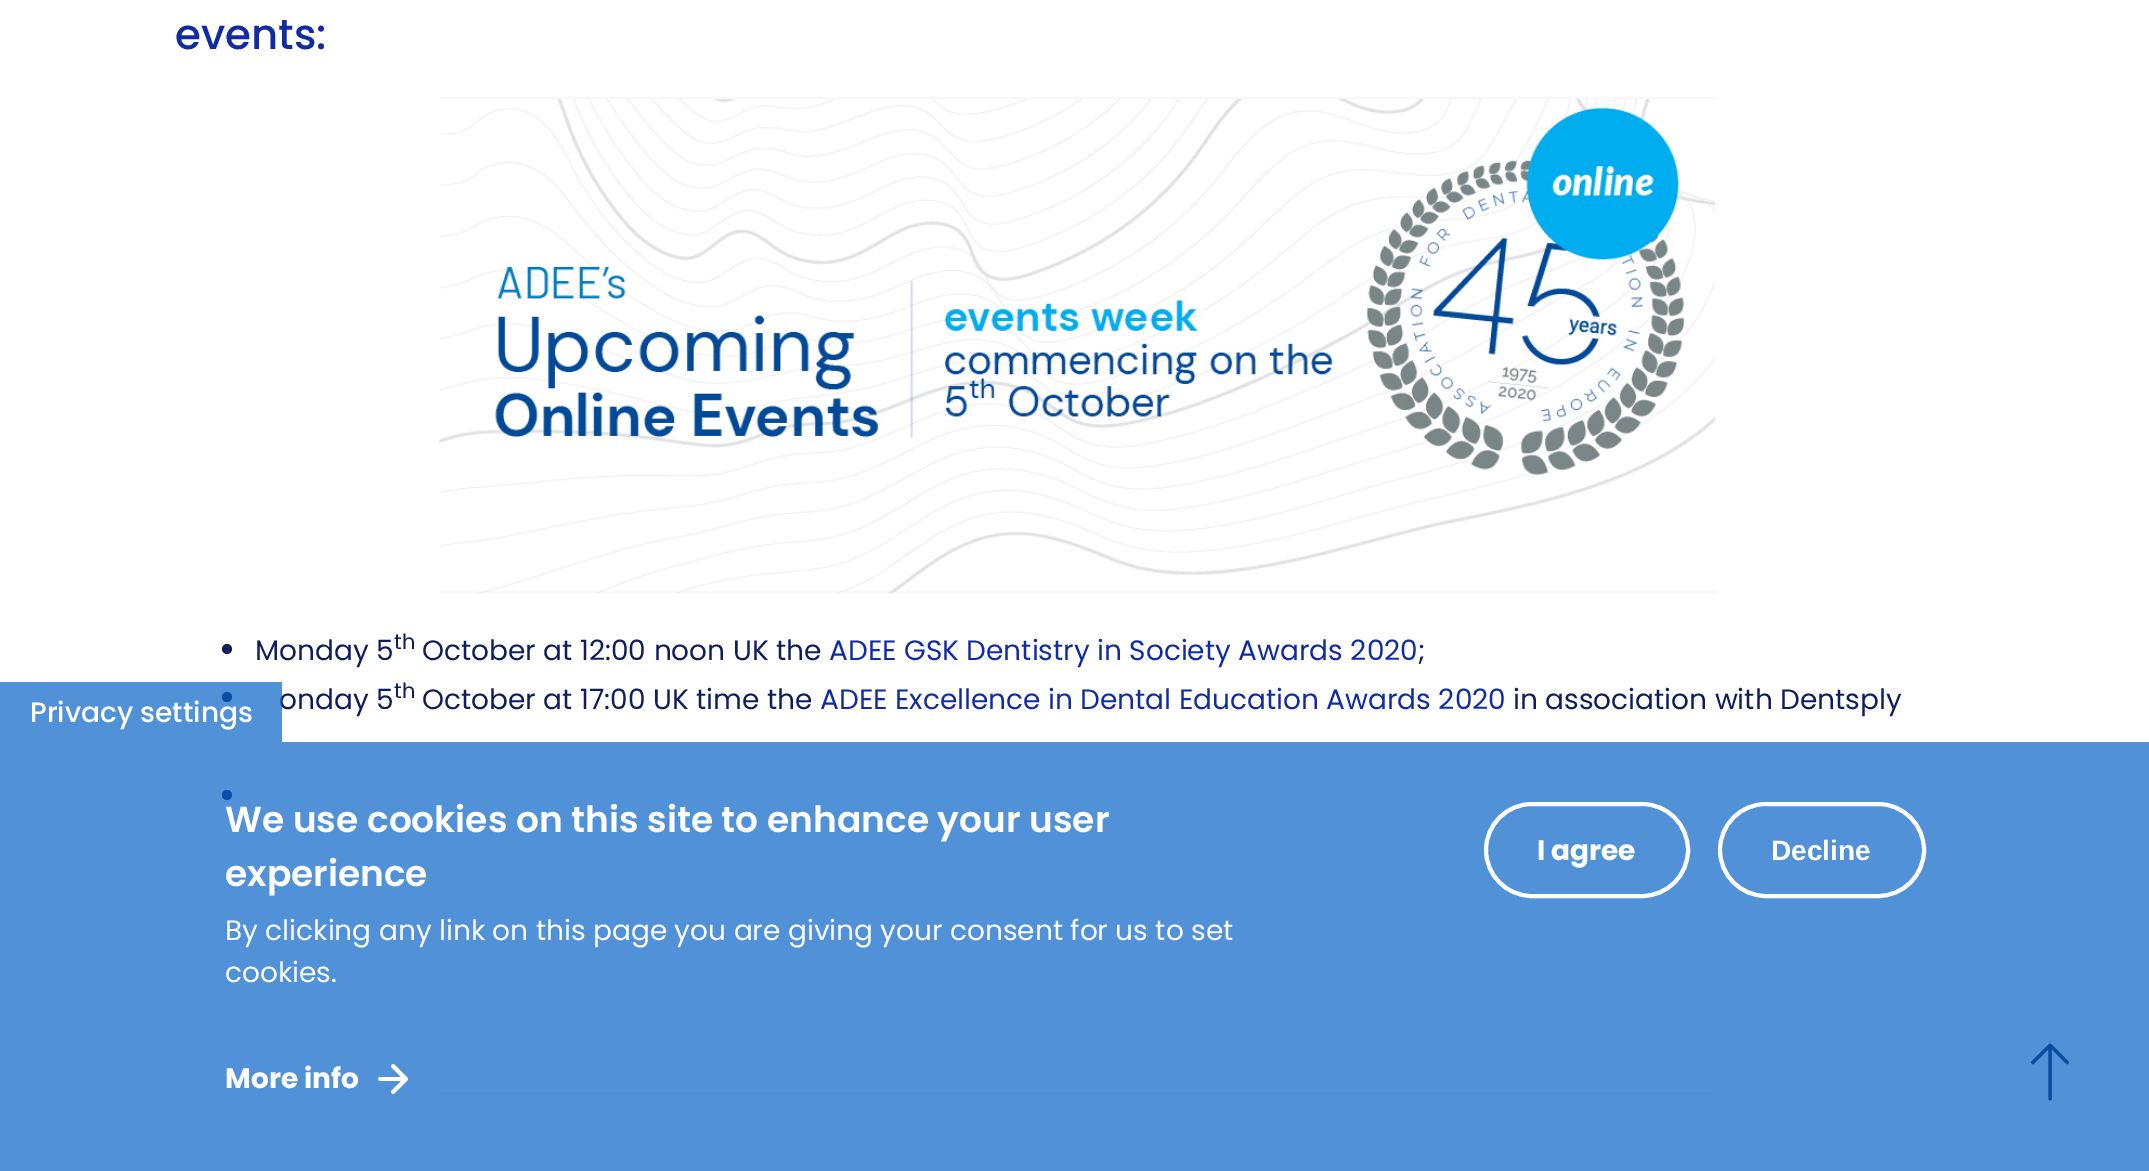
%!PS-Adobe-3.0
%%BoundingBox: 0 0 2149 1171
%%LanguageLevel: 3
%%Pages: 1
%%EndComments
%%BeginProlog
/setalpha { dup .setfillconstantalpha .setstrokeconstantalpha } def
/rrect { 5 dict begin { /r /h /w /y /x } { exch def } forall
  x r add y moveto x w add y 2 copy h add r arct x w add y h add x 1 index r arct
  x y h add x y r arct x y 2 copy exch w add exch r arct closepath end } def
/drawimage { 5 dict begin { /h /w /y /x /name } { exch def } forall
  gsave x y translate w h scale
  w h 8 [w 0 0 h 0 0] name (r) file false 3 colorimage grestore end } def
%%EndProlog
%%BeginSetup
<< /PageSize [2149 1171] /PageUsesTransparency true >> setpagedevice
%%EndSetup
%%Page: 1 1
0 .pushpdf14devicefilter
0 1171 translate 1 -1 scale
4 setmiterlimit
1 setgray
0 0 2149 1171 rectfill
(images/1.raw) 439 97 1277 497 drawimage
0.055 0.114 0.365 setrgbcolor
newpath 227 649 5 0 360 arc closepath fill
newpath 227 697 5 0 360 arc closepath fill
newpath 227 795 5 0 360 arc closepath fill
0.973 0.973 0.98 setrgbcolor
439 1093 1275 2 rectfill
(images/3.raw) 2000 1022 100 100 drawimage
0.7 setalpha
0.024 0.384 0.776 setrgbcolor
0 742 2149 429 rectfill
1 setalpha
(images/2.raw) 378 1064 30 30 drawimage
1 setgray
4 setlinewidth
1486 804 202 92 46 rrect stroke
1720 804 204 92 46 rrect stroke
/Poppins-Medium [42 0 0 -42 0 0] selectfont
0.067 0.173 0.639 setrgbcolor
175 49 moveto (events:) show
/Poppins-Regular [28 0 0 -28 0 0] selectfont
0.055 0.114 0.365 setrgbcolor
255 660 moveto (Monday 5) show
/Poppins-Regular [21 0 0 -21 0 0] selectfont
394 649 moveto (th) show
/Poppins-Regular [28 0 0 -28 0 0] selectfont
422 660 moveto (October at 12:00 noon UK the) show
0.067 0.173 0.639 setrgbcolor
829 660 moveto (ADEE GSK Dentistry in Society Awards 2020) show
0.055 0.114 0.365 setrgbcolor
1418 660 moveto (;) show
279 709 moveto (onday 5) show
/Poppins-Regular [21 0 0 -21 0 0] selectfont
394 698 moveto (th) show
/Poppins-Regular [28 0 0 -28 0 0] selectfont
422 709 moveto (October at 17:00 UK time the) show
0.067 0.173 0.639 setrgbcolor
820 709 moveto (ADEE Excellence in Dental Education Awards 2020) show
0.055 0.114 0.365 setrgbcolor
1513 709 moveto (in association with Dentsply) show
0.7 setalpha
0.024 0.384 0.776 setrgbcolor
0 682 282 60 rectfill
/Poppins-Medium [28 0 0 -28 0 0] selectfont
1 setalpha
1 setgray
30 722 moveto (Privacy settings) show
/Poppins-SemiBold [36 0 0 -36 0 0] selectfont
225 832 moveto (We use cookies on this site to enhance your user) show
225 886 moveto (experience) show
/Poppins-Regular [28 0 0 -28 0 0] selectfont
225 940 moveto (By clicking any link on this page you are giving your consent for us to set) show
225 982 moveto (cookies.) show
/Poppins-Bold [28 0 0 -28 0 0] selectfont
225 1088 moveto (More info) show
1537 860 moveto (I agree) show
/LiberationSans-Bold [28 0 0 -28 0 0] selectfont
1771 860 moveto (Decline) show
.poppdf14devicefilter showpage
%%EOF
